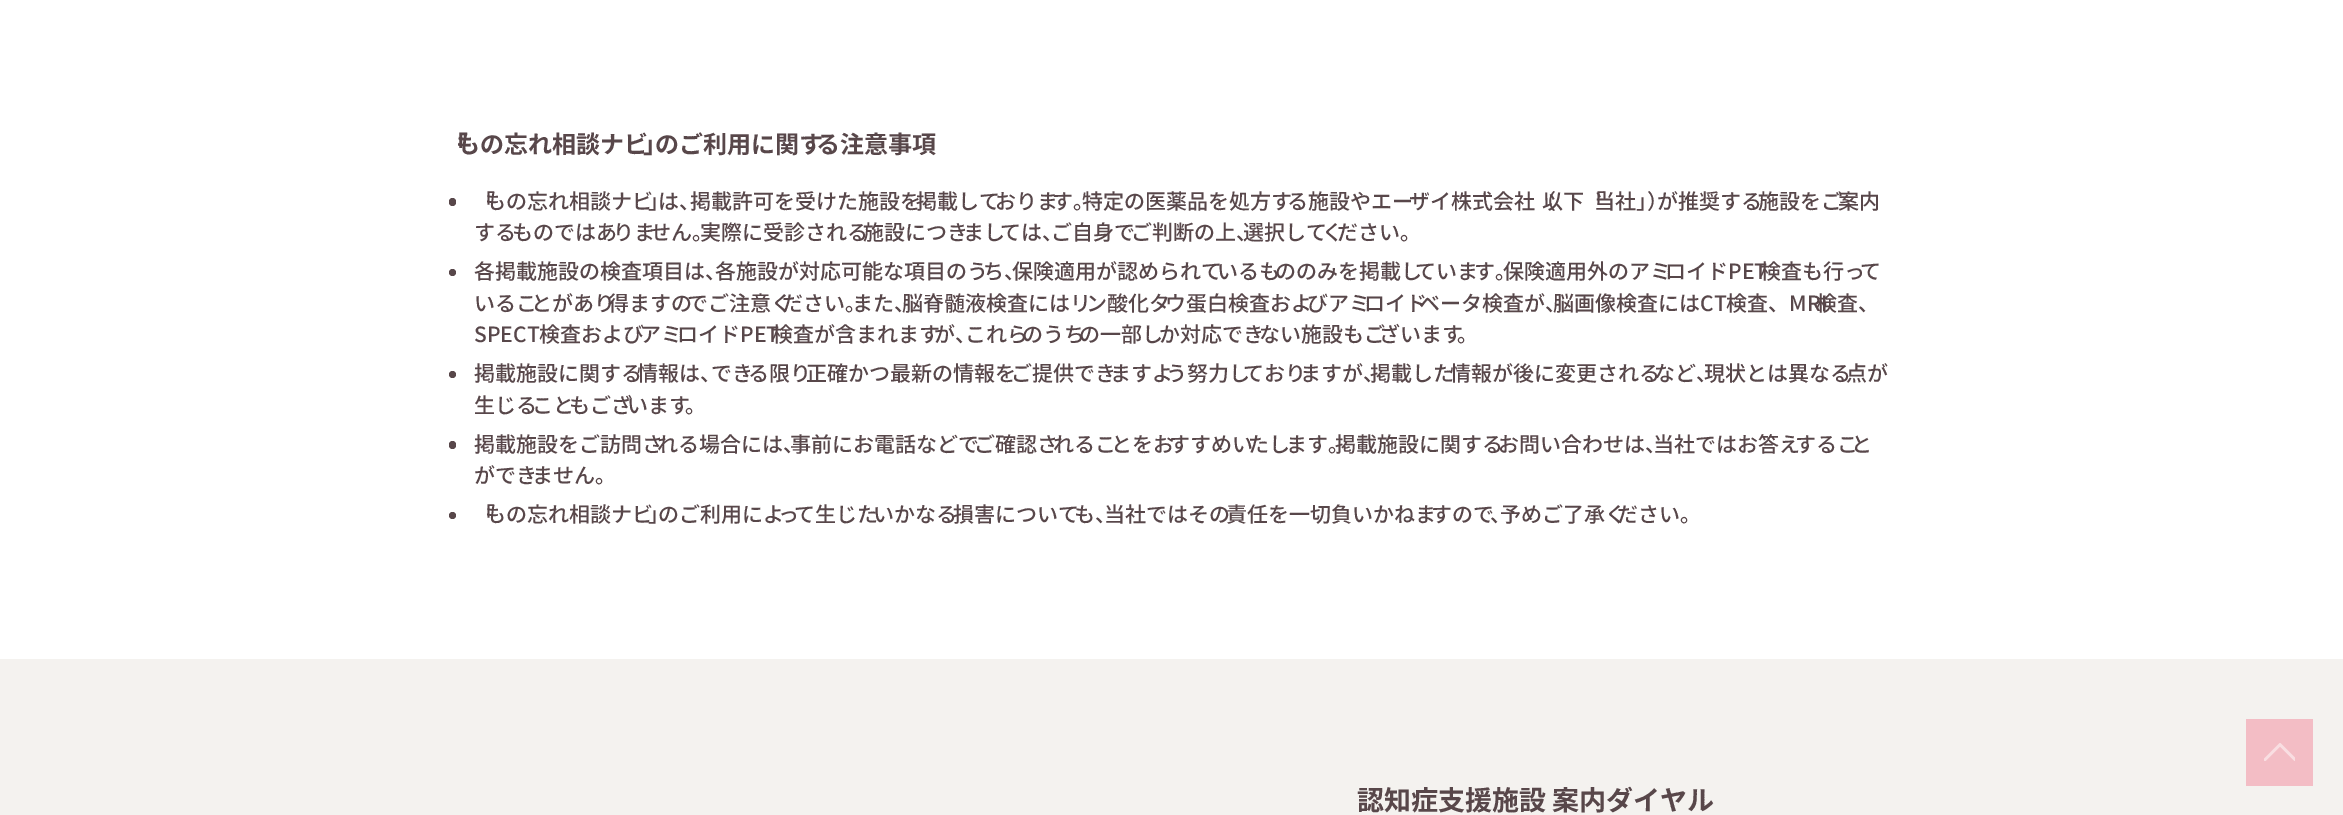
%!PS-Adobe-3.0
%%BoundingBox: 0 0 2343 815
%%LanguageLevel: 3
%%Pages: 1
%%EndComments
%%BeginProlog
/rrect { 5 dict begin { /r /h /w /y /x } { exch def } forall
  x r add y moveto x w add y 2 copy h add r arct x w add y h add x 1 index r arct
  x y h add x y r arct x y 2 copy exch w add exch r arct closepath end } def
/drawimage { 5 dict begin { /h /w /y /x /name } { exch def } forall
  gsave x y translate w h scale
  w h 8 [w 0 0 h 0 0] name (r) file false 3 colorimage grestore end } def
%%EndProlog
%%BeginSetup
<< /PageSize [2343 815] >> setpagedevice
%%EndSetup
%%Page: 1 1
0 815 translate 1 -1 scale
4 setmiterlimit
1 setgray
0 0 2343 815 rectfill
0.345 0.278 0.29 setrgbcolor
449 198 7 8 3.5 rrect fill
newpath 452.5 272.5 3.5 0 360 arc closepath fill
newpath 452.5 374.5 3.5 0 360 arc closepath fill
449 441 7 8 3.5 rrect fill
newpath 452.5 515.5 3.5 0 360 arc closepath fill
0.957 0.949 0.937 setrgbcolor
0 659 2343 156 rectfill
0.953 0.741 0.773 setrgbcolor
2246 719 67 67 rectfill
(images/1.raw) 2264 743 31 18 drawimage
/NotoSansJP-Bold [24 0 0 -24 0 0] selectfont
0.345 0.278 0.29 setrgbcolor
444 153 moveto (「) show
456 153 moveto (もの忘れ相談ナビ) show
643 153 moveto (」) show
655 153 moveto (のご利用に関す) show
816 153 moveto (る注意事項) show
/NotoSansJP-Medium [21 0 0 -21 0 0] selectfont
474 209 moveto (「) show
485 209 moveto (もの忘れ相談ナビ) show
648 209 moveto (」) show
658 209 moveto (は、) show
690 209 moveto (掲載許可を受けた施設を) show
916 209 moveto (掲載して) show
995 209 moveto (おりま) show
1052 209 moveto (す。) show
1082 209 moveto (特定の医薬品を処方す) show
1287 209 moveto (る施設やエー) show
1409 209 moveto (ザイ株式会社（) show
1542 209 moveto (以下「) show
1594 209 moveto (当社」) show
1647 209 moveto (）) show
1657 209 moveto (が推奨する) show
1758 209 moveto (施設をご) show
1838 209 moveto (案内) show
474 240 moveto (する) show
512 240 moveto (ものではあ) show
613 240 moveto (りま) show
650 240 moveto (せん。) show
700 240 moveto (実際に受診される) show
863 240 moveto (施設につき) show
963 240 moveto (まし) show
1000 240 moveto (ては、) show
1051 240 moveto (ご自身で) show
1131 240 moveto (ご判断の上、) show
1243 240 moveto (選択して) show
1322 240 moveto (く) show
1337 240 moveto (ださい。) show
474 279 moveto (各掲載施設の検査項目は、) show
715 279 moveto (各施設が対応可能な項目のう) show
983 279 moveto (ち、) show
1012 279 moveto (保険適用が認められて) show
1217 279 moveto (いるも) show
1275 279 moveto (ののみを掲載し) show
1415 279 moveto (ていま) show
1474 279 moveto (す。) show
1503 279 moveto (保険適用外のアミ) show
1665 279 moveto (ロイドPET) show
1760 279 moveto (検査も行っ) show
1860 279 moveto (て) show
474 311 moveto (いるこ) show
531 311 moveto (とがあり) show
608 311 moveto (得ますの) show
687 311 moveto (でご注意く) show
782 311 moveto (ださい。) show
852 311 moveto (また、) show
902 311 moveto (脳脊髄液検査にはリ) show
1086 311 moveto (ン酸化タ) show
1165 311 moveto (ウ蛋白検査およ) show
1307 311 moveto (びアミ) show
1364 311 moveto (ロイド) show
1419 311 moveto (ベータ検査が、) show
1553 311 moveto (脳画像検査にはCT検査、MRI) show
1816 311 moveto (検査、) show
474 342 moveto (SPECT検査および) show
640 342 moveto (アミ) show
677 342 moveto (ロイドPET) show
772 342 moveto (検査が含まれます) show
934 342 moveto (が、) show
965 342 moveto (これら) show
1022 342 moveto (のうち) show
1079 342 moveto (の一部し) show
1159 342 moveto (か対応でき) show
1259 342 moveto (ない施設もご) show
1379 342 moveto (ざいます) show
1457 342 moveto (。) show
474 381 moveto (掲載施設に関する) show
637 381 moveto (情報は、) show
711 381 moveto (でき) show
748 381 moveto (る限り) show
806 381 moveto (正確かつ最新の情報を) show
1011 381 moveto (ご提供でき) show
1110 381 moveto (ますよ) show
1166 381 moveto (う努力し) show
1243 381 moveto (ており) show
1300 381 moveto (ますが、) show
1370 381 moveto (掲載した) show
1450 381 moveto (情報が後に変更される) show
1654 381 moveto (など、) show
1704 381 moveto (現状とは異なる) show
1846 381 moveto (点が) show
474 413 moveto (生じる) show
532 413 moveto (こと) show
569 413 moveto (もござ) show
627 413 moveto (います) show
685 413 moveto (。) show
474 452 moveto (掲載施設をご訪問さ) show
657 452 moveto (れる場合には、) show
790 452 moveto (事前にお電話などで) show
974 452 moveto (ご確認さ) show
1053 452 moveto (れるこ) show
1111 452 moveto (とをお) show
1169 452 moveto (すすめい) show
1248 452 moveto (たし) show
1286 452 moveto (ます。) show
1335 452 moveto (掲載施設に関する) show
1498 452 moveto (お問い合わせは、) show
1653 452 moveto (当社ではお答え) show
1795 452 moveto (するこ) show
1851 452 moveto (と) show
474 483 moveto (ができ) show
532 483 moveto (ません。) show
474 522 moveto (「) show
485 522 moveto (もの忘れ相談ナビ) show
648 522 moveto (」) show
658 522 moveto (のご利用によ) show
778 522 moveto (っ) show
794 522 moveto (て生じた) show
873 522 moveto (いかなる) show
953 522 moveto (損害について) show
1074 522 moveto (も、) show
1104 522 moveto (当社ではその) show
1226 522 moveto (責任を一切負いかねま) show
1431 522 moveto (すので) show
1490 522 moveto (、) show
1500 522 moveto (予めご了承く) show
1617 522 moveto (ださい。) show
/NotoSansJP-Bold [27 0 0 -27 0 0] selectfont
1357 810 moveto (認知症支援施設 案内ダイヤル) show
showpage
%%EOF
